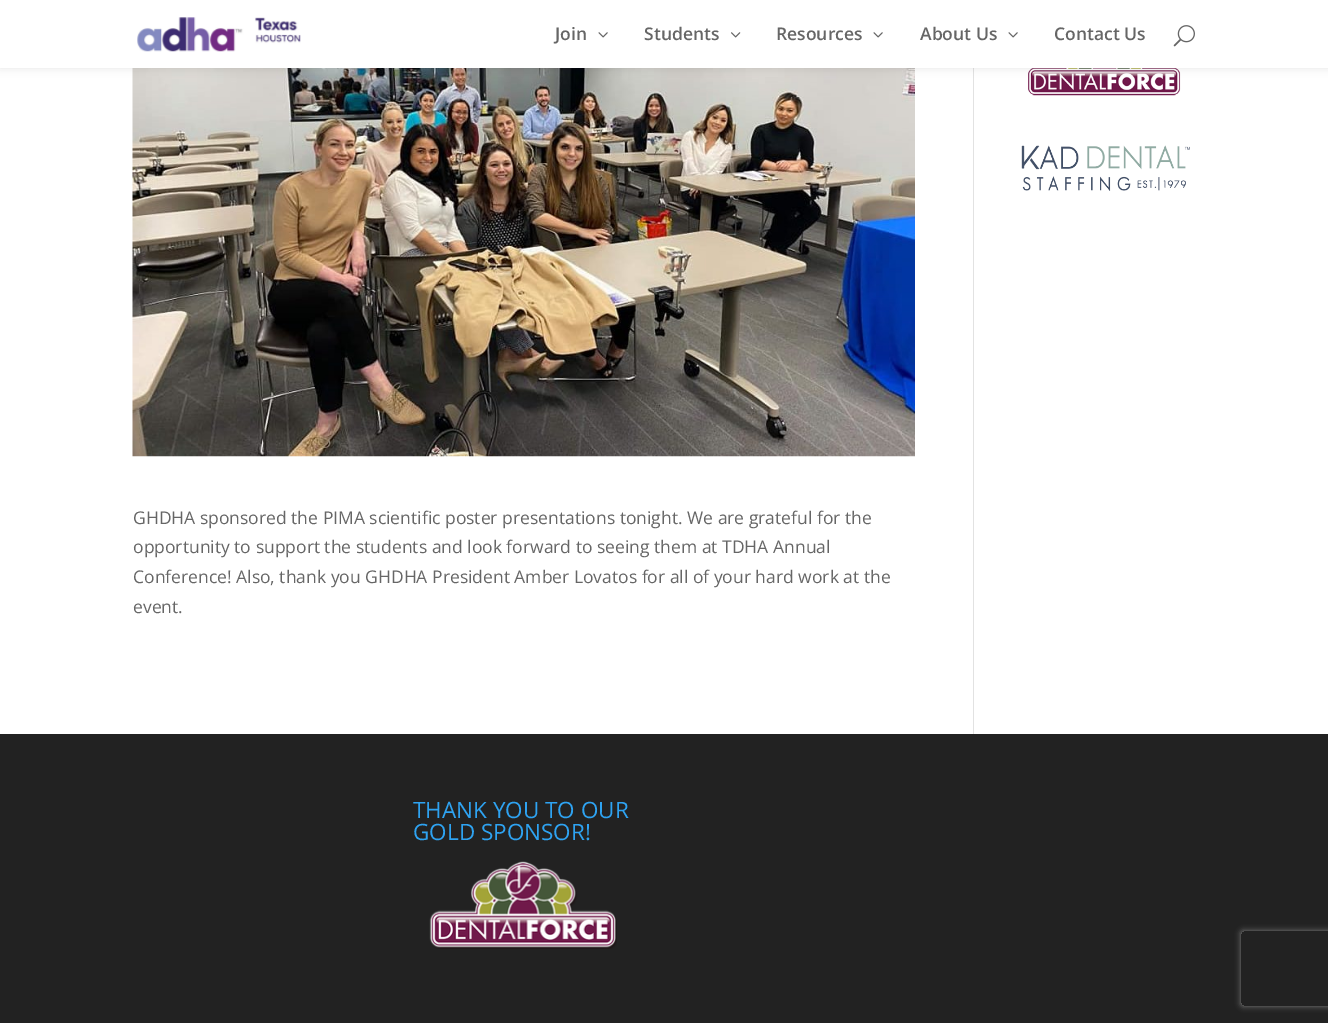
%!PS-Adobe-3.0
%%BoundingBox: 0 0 1328 1023
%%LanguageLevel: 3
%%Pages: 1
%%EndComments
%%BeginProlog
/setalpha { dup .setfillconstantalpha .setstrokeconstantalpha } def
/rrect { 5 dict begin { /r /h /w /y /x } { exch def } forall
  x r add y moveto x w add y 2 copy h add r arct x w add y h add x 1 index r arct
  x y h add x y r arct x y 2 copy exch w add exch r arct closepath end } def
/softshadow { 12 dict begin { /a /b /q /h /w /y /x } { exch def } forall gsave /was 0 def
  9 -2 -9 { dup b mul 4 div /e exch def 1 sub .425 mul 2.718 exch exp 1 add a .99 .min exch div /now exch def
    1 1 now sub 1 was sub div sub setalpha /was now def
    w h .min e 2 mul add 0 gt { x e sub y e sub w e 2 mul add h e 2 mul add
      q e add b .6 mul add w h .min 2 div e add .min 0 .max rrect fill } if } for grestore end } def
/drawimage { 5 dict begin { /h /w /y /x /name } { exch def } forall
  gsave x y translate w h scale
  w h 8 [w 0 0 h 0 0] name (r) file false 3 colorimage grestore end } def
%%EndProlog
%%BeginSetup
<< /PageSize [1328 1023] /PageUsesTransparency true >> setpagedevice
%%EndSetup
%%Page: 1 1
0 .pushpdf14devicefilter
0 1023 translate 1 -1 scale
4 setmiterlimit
1 setgray
0 0 1328 1023 rectfill
(images/5.raw) 1028 68 153 28 drawimage
(images/7.raw) 132 68 783 389 drawimage
0.886 setgray
973 68 1 666 rectfill
0 setgray
0 0 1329 68 0 4.5 0.1 softshadow
1 setgray
0 0 1328 68 rectfill
(images/1.raw) 137 17 164 35 drawimage
(images/2.raw) 598 32 10 6 drawimage
(images/3.raw) 731 32 10 6 drawimage
(images/2.raw) 873 32 10 6 drawimage
(images/2.raw) 1008 32 10 6 drawimage
(images/4.raw) 1173 25 22 22 drawimage
(images/6.raw) 1021 145 169 46 drawimage
0.133 setgray
0 734 1328 289 rectfill
(images/8.raw) 429 861 188 88 drawimage
gsave
newpath 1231 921 moveto 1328 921 lineto 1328 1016 lineto 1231 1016 lineto closepath 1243.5 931 moveto 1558.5 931 lineto 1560 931 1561 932 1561 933.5 curveto 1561 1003.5 lineto 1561 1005 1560 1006 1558.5 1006 curveto 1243.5 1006 lineto 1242 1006 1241 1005 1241 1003.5 curveto 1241 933.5 lineto 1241 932 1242 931 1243.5 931 curveto closepath eoclip newpath
0.502 setgray
1241 931 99 75 2.5 3 1 softshadow
grestore
/OpenSans-SemiBold [17.5 0 0 -17.5 0 0] selectfont
0.4 setgray
555 40 moveto (Join) show
644 40 moveto (Students) show
776 40 moveto (Resources) show
920 40 moveto (About Us) show
1054 40 moveto (Contact Us) show
/OpenSans-Regular [17.5 0 0 -17.5 0 0] selectfont
133 524 moveto (GHDHA sponsored the PIMA scientific poster presentations tonight. We are grateful for the) show
133 553 moveto (opportunity to support the students and look forward to seeing them at TDHA Annual) show
133 583 moveto (Conference! Also, thank you GHDHA President Amber Lovatos for all of your hard work at the) show
133 613 moveto (event.) show
/OpenSans-Regular [22.5 0 0 -22.5 0 0] selectfont
0.18 0.639 0.949 setrgbcolor
413 818 moveto (THANK YOU TO OUR) show
413 840 moveto (GOLD SPONSOR!) show
.poppdf14devicefilter showpage
%%EOF
